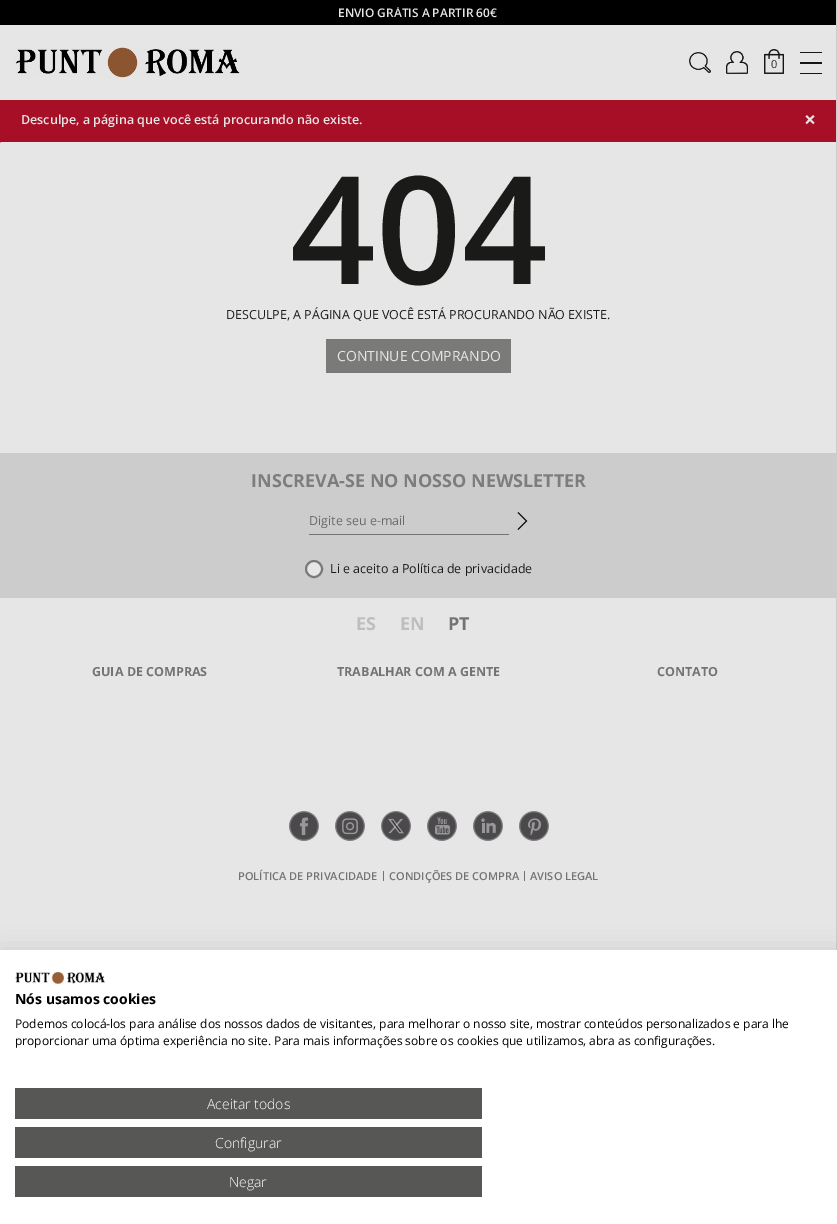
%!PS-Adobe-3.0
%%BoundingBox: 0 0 837 1224
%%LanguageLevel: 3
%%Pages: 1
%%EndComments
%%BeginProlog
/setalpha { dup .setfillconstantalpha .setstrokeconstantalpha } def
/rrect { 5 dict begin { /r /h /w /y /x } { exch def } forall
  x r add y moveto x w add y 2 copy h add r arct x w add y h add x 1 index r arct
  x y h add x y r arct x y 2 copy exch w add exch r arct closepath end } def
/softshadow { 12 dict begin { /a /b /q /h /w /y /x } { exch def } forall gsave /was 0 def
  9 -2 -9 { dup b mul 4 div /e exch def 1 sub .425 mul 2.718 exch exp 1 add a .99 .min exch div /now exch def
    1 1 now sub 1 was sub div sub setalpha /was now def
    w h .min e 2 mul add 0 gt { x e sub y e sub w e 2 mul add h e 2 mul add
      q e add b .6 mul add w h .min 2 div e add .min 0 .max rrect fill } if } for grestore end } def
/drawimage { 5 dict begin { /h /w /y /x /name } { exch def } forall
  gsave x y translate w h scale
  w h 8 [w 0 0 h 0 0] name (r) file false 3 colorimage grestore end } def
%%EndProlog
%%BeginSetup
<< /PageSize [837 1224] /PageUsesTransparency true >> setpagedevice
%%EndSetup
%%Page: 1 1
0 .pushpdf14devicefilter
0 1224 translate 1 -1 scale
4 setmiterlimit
0.902 setgray
0 0 837 1224 rectfill
0 setgray
0 0 836 25 rectfill
(images/1.raw) 15 47 225 31 drawimage
(images/2.raw) 689 52 22 21 drawimage
(images/3.raw) 726 51 22 23 drawimage
(images/4.raw) 764 49 20 25 drawimage
0.09 0.082 0.094 setrgbcolor
800 52 22 1 0.5 rrect fill
800 62 22 2 0.5 rrect fill
800 73 22 1 0.5 rrect fill
0.655 0.059 0.149 setrgbcolor
0 100 836 43 rectfill
0.902 setgray
newpath 837 143 moveto 0 143 lineto 1 142 lineto 836 142 lineto closepath fill
0.808 setgray
836 0 1 950 rectfill
0.478 0.478 0.475 setrgbcolor
326 339 185 34 rectfill
0.8 setgray
0 453 836 145 rectfill
0.451 setgray
309 534 200 1 rectfill
0 setgray
newpath 518 512.5 moveto 526.5 521 lineto 518 529.5 lineto stroke
0.902 setgray
newpath 314 569 8 0 360 arc closepath gsave fill grestore
0.478 0.478 0.475 setrgbcolor
2 setlinewidth
stroke
(images/5.raw) 289 811 30 30 drawimage
(images/6.raw) 335 811 30 30 drawimage
(images/7.raw) 381 811 30 30 drawimage
(images/8.raw) 427 811 30 30 drawimage
(images/9.raw) 473 811 30 30 drawimage
(images/10.raw) 519 811 30 30 drawimage
0.451 setgray
383 871 1 10 rectfill
524 871 1 10 rectfill
0 setgray
0 950 837 274 0 12 0.1 softshadow
1 setgray
0 950 837 274 rectfill
(images/11.raw) 15 972 90 12 drawimage
0.341 0.341 0.337 setrgbcolor
15 1088 467 31 rectfill
15 1127 467 31 rectfill
15 1166 467 31 rectfill
gsave
15 7 807 11 rectclip
/OpenSans-SemiBold [11.9 0 0 -11.9 0 0] selectfont
0.902 setgray
338 17 moveto (ENVIO GRÁTIS A PARTIR 60€) show
grestore
/OpenSans-Regular [11 0 0 -11 0 0] selectfont
0.18 setgray
771 68 moveto (0) show
/OpenSans-SemiBold [12.5 0 0 -12.5 0 0] selectfont
0.902 setgray
21 124 moveto (Desculpe, a página que você está procurando não existe.) show
/OpenSans-Bold [21 0 0 -21 0 0] selectfont
804 127 moveto (×) show
/OpenSans-SemiBold [150 0 0 -150 0 0] selectfont
0.102 0.102 0.094 setrgbcolor
290 284 moveto (404) show
/OpenSans-Regular [12.5 0 0 -12.5 0 0] selectfont
226 319 moveto (DESCULPE, A PÁGINA QUE VOCÊ ESTÁ PROCURANDO NÃO EXISTE.) show
/OpenSans-Regular [14 0 0 -14 0 0] selectfont
0.902 setgray
337 361 moveto (CONTINUE COMPRANDO) show
/OpenSans-Bold [18 0 0 -18 0 0] selectfont
0.482 0.49 0.494 setrgbcolor
251 487 moveto (INSCREVA-SE NO NOSSO NEWSLETTER) show
/OpenSans-Regular [12.5 0 0 -12.5 0 0] selectfont
0.412 setgray
309 525 moveto (Digite seu e-mail) show
0.102 0.102 0.094 setrgbcolor
330 573 moveto (Li e aceito a Política de privacidade) show
/OpenSans-Bold [18 0 0 -18 0 0] selectfont
0.745 setgray
356 630 moveto (ES) show
400 630 moveto (EN) show
0.451 setgray
448 630 moveto (PT) show
/OpenSans-Bold [12.5 0 0 -12.5 0 0] selectfont
92 676 moveto (GUIA DE COMPRAS) show
337 676 moveto (TRABALHAR COM A GENTE) show
657 676 moveto (CONTATO) show
/OpenSans-SemiBold [11 0 0 -11 0 0] selectfont
238 880 moveto (POLÍTICA DE PRIVACIDADE) show
389 880 moveto (CONDIÇÕES DE COMPRA) show
530 880 moveto (AVISO LEGAL) show
/OpenSans-Bold [14 0 0 -14 0 0] selectfont
0 setgray
15 1004 moveto (Nós usamos cookies) show
/OpenSans-Regular [12 0 0 -12 0 0] selectfont
15 1028 moveto (Podemos colocá-los para análise dos nossos dados de visitantes, para melhorar o nosso site, mostrar conteúdos personalizados e para lhe) show
15 1045 moveto (proporcionar uma óptima experiência no site. Para mais informações sobre os cookies que utilizamos, abra as configurações.) show
/OpenSans-Light [14 0 0 -14 0 0] selectfont
1 setgray
207 1109 moveto (Aceitar todos) show
215 1148 moveto (Configurar) show
229 1187 moveto (Negar) show
.poppdf14devicefilter showpage
%%EOF
